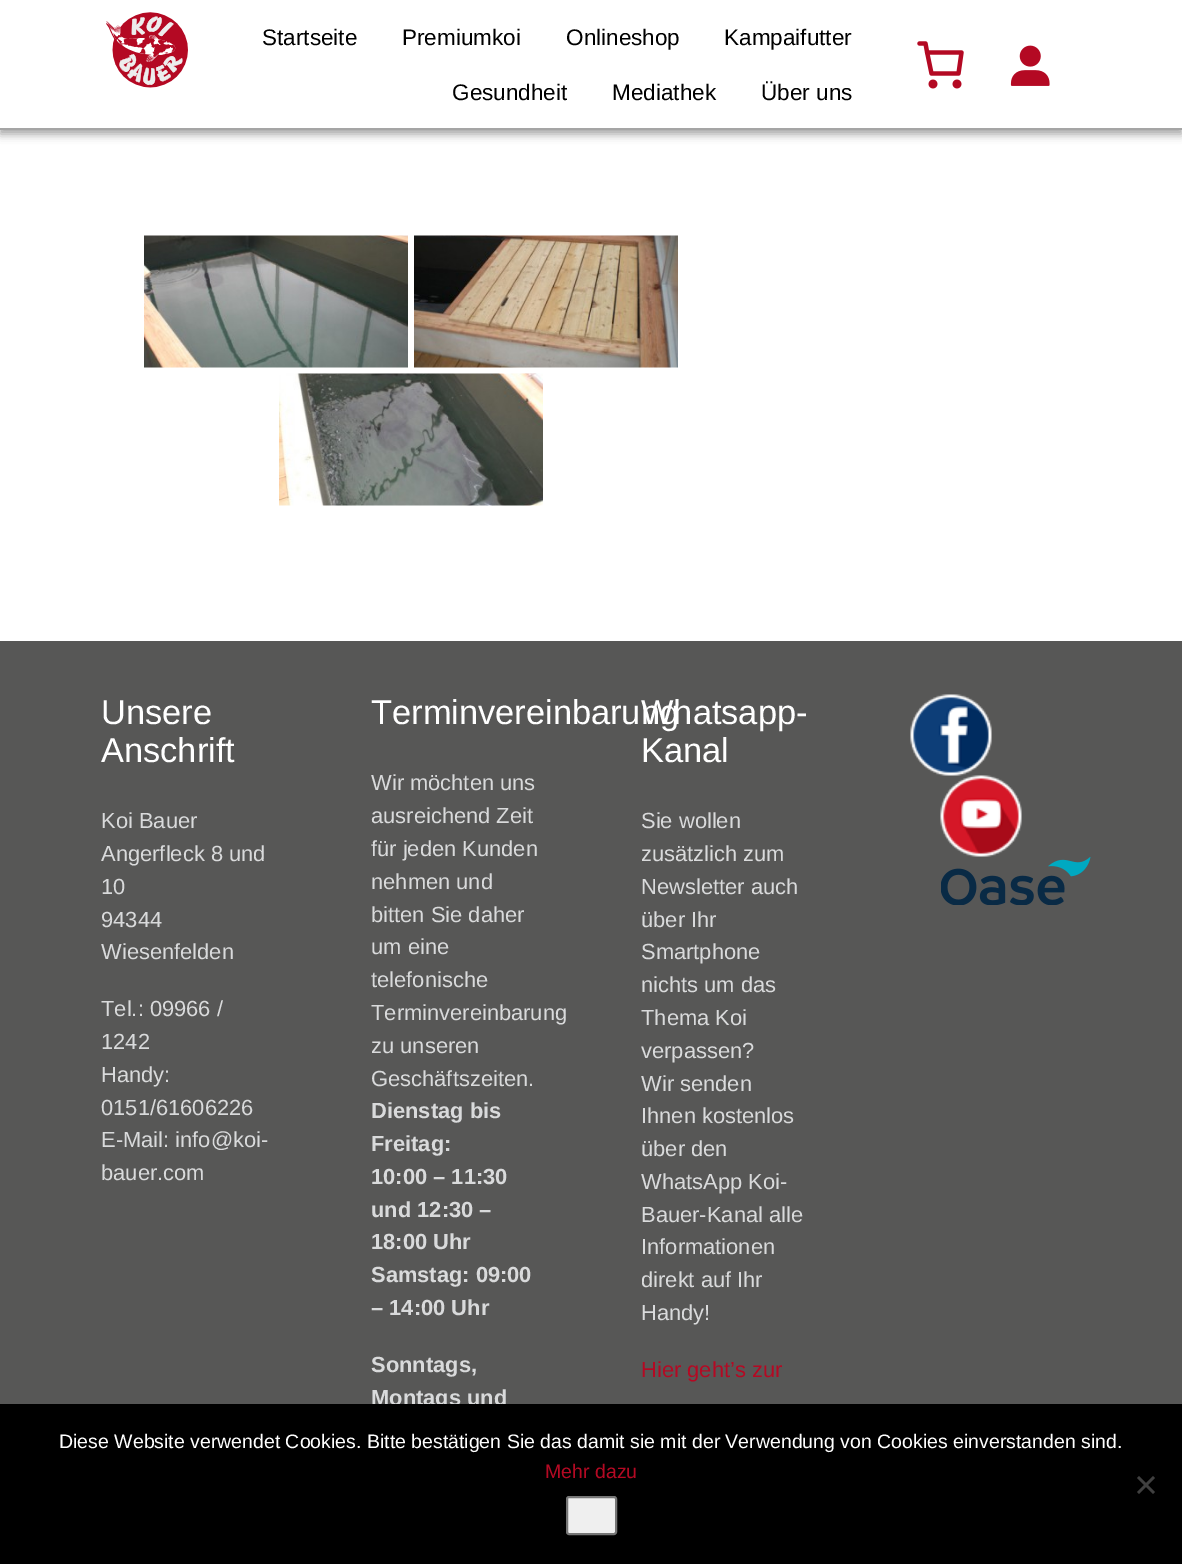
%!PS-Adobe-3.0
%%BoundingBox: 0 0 1182 1564
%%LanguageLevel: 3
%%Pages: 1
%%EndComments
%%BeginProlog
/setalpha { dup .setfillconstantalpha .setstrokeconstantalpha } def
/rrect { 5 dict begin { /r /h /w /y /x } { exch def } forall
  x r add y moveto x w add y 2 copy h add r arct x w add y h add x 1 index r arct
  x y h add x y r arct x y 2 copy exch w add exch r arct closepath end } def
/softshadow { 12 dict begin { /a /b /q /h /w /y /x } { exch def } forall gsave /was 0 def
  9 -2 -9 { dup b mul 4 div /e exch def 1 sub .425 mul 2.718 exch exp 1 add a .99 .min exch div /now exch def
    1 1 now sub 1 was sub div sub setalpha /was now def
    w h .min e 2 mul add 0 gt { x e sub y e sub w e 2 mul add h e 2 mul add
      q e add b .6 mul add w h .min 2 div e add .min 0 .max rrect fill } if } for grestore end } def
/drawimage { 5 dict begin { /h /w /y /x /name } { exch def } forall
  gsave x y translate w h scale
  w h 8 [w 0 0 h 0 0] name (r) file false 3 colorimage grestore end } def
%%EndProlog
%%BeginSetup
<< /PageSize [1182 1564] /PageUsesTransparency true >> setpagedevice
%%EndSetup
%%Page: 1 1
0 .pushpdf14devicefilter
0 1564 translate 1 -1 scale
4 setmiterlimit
1 setgray
0 0 1182 1564 rectfill
0 setgray
0 5 1182 129 0 4.5 0.23 softshadow
0 5 1182 129 0 4.5 0.16 softshadow
1 setgray
0 0 1182 128 rectfill
0.647 setgray
0 128 1182 2 rectfill
(images/1.raw) 106 12 82 76 drawimage
(images/2.raw) 917 41 47 48 drawimage
(images/3.raw) 1010 45 40 41 drawimage
(images/4.raw) 144 235 264 133 drawimage
(images/5.raw) 414 235 264 133 drawimage
(images/6.raw) 279 373 264 133 drawimage
0.341 0.341 0.337 setrgbcolor
0 641 1182 763 rectfill
(images/7.raw) 910 694 82 82 drawimage
(images/8.raw) 940 775 82 82 drawimage
(images/9.raw) 941 857 150 48 drawimage
/LiberationSans-Regular [22.5 0 0 -22.5 0 0] selectfont
0 setgray
262 45 moveto (Startseite) show
402 45 moveto (Premiumkoi) show
566 45 moveto (Onlineshop) show
724 45 moveto (Kampaifutter) show
452 100 moveto (Gesundheit) show
612 100 moveto (Mediathek) show
761 100 moveto (Über uns) show
/LiberationSans-Regular [34.4 0 0 -34.4 0 0] selectfont
1 setgray
101 724 moveto (Unsere) show
101 762 moveto (Anschrift) show
/LiberationSans-Regular [21.9 0 0 -21.9 0 0] selectfont
0.851 0.855 0.859 setrgbcolor
101 828 moveto (Koi Bauer) show
101 861 moveto (Angerfleck 8 und) show
101 894 moveto (10) show
101 927 moveto (94344) show
101 959 moveto (Wiesenfelden) show
101 1016 moveto (Tel.: 09966 /) show
101 1049 moveto (1242) show
101 1082 moveto (Handy:) show
101 1115 moveto (0151/61606226) show
101 1147 moveto (E-Mail: info@koi-) show
101 1180 moveto (bauer.com) show
/LiberationSans-Regular [34.4 0 0 -34.4 0 0] selectfont
1 setgray
371 724 moveto (Terminvereinbarung) show
/LiberationSans-Regular [21.9 0 0 -21.9 0 0] selectfont
0.851 0.855 0.859 setrgbcolor
371 790 moveto (Wir möchten uns) show
371 823 moveto (ausreichend Zeit) show
371 856 moveto (für jeden Kunden) show
371 889 moveto (nehmen und) show
371 922 moveto (bitten Sie daher) show
371 954 moveto (um eine) show
371 987 moveto (telefonische) show
371 1020 moveto (Terminvereinbarung) show
371 1053 moveto (zu unseren) show
371 1086 moveto (Geschäftszeiten.) show
/LiberationSans-Bold [21.9 0 0 -21.9 0 0] selectfont
371 1118 moveto (Dienstag bis) show
371 1151 moveto (Freitag:) show
371 1184 moveto (10:00 – 11:30) show
371 1217 moveto (und 12:30 –) show
371 1249 moveto (18:00 Uhr) show
371 1282 moveto (Samstag: 09:00) show
371 1315 moveto (– 14:00 Uhr) show
371 1372 moveto (Sonntags,) show
371 1405 moveto (Montags und) show
/LiberationSans-Regular [34.4 0 0 -34.4 0 0] selectfont
1 setgray
641 724 moveto (Whatsapp-) show
641 762 moveto (Kanal) show
/LiberationSans-Regular [21.9 0 0 -21.9 0 0] selectfont
0.851 0.855 0.859 setrgbcolor
641 828 moveto (Sie wollen) show
641 861 moveto (zusätzlich zum) show
641 894 moveto (Newsletter auch) show
641 927 moveto (über Ihr) show
641 959 moveto (Smartphone) show
641 992 moveto (nichts um das) show
641 1025 moveto (Thema Koi) show
641 1058 moveto (verpassen?) show
641 1091 moveto (Wir senden) show
641 1123 moveto (Ihnen kostenlos) show
641 1156 moveto (über den) show
641 1189 moveto (WhatsApp Koi-) show
641 1222 moveto (Bauer-Kanal alle) show
641 1254 moveto (Informationen) show
641 1287 moveto (direkt auf Ihr) show
641 1320 moveto (Handy!) show
0.706 0.035 0.137 setrgbcolor
641 1377 moveto (Hier geht’s zur) show
0 setgray
0 1404 1182 160 rectfill
/LiberationSans-Regular [19.5 0 0 -19.5 0 0] selectfont
1 setgray
59 1448 moveto (Diese Website verwendet Cookies. Bitte bestätigen Sie das damit sie mit der Verwendung von Cookies einverstanden sind.) show
0.706 0.035 0.137 setrgbcolor
545 1478 moveto (Mehr dazu) show
0.251 setgray
newpath 1153 1476 moveto 1155 1478 lineto 1139 1494 lineto 1137 1492 lineto closepath fill
newpath 1137 1478 moveto 1139 1476 lineto 1155 1492 lineto 1153 1494 lineto closepath fill
0.937 setgray
567 1497 49 37 2 rrect gsave fill grestore
0.463 setgray
2 setlinewidth
stroke
.poppdf14devicefilter showpage
%%EOF
